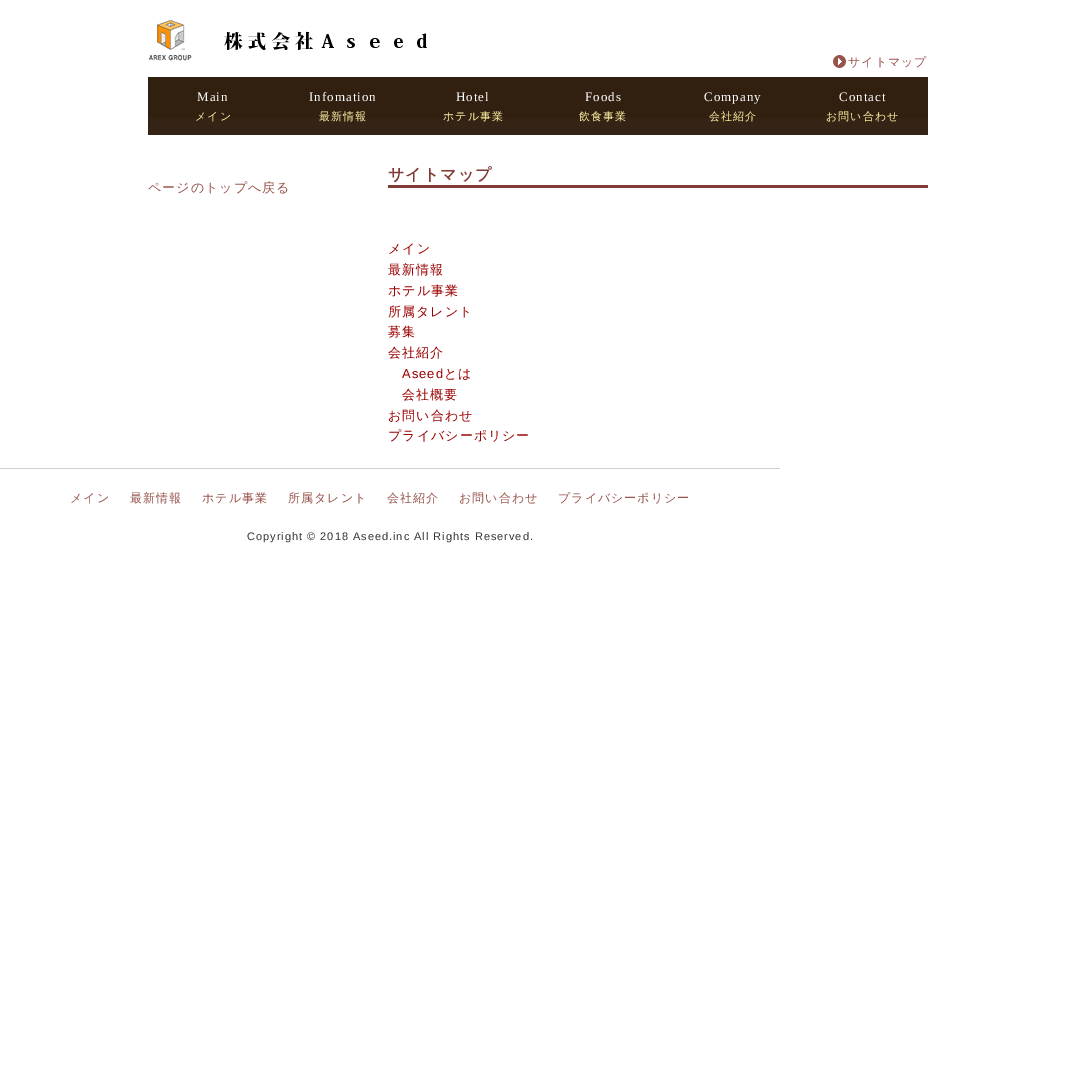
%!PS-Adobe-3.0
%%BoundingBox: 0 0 1076 1091
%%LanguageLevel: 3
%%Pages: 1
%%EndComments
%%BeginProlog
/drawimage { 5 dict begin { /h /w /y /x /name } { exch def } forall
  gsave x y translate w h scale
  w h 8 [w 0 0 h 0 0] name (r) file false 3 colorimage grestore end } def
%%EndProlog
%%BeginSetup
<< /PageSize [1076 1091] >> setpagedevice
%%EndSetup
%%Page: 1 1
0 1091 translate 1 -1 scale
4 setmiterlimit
1 setgray
0 0 1076 1091 rectfill
(images/1.raw) 148 19 279 42 drawimage
(images/2.raw) 833 55 13 13 drawimage
(images/3.raw) 148 77 130 58 drawimage
(images/3.raw) 278 77 130 58 drawimage
(images/3.raw) 408 77 130 58 drawimage
(images/3.raw) 538 77 130 58 drawimage
(images/3.raw) 668 77 130 58 drawimage
(images/3.raw) 798 77 130 58 drawimage
0.51 0.235 0.204 setrgbcolor
388 185 540 3 rectfill
0.808 0.812 0.808 setrgbcolor
0 468 780 1 rectfill
/WenQuanYiZenHei-Medium [12 0 0 -12 0 0] selectfont
0.596 0.325 0.294 setrgbcolor
848 66 moveto 1 0 (サイトマップ) ashow
/LiberationSerif-Regular [13 0 0 -13 0 0] selectfont
1 setgray
197 101 moveto 1 0 (Main) ashow
/WenQuanYiZenHei-Medium [11 0 0 -11 0 0] selectfont
1 0.945 0.643 setrgbcolor
195 120 moveto 1 0 (メイン) ashow
/LiberationSerif-Regular [13 0 0 -13 0 0] selectfont
1 setgray
309 101 moveto 1 0 (Infomation) ashow
/WenQuanYiZenHei-Medium [11 0 0 -11 0 0] selectfont
1 0.945 0.643 setrgbcolor
319 120 moveto 1 0 (最新情報) ashow
/LiberationSerif-Regular [13 0 0 -13 0 0] selectfont
1 setgray
456 101 moveto 1 0 (Hotel) ashow
/WenQuanYiZenHei-Medium [11 0 0 -11 0 0] selectfont
1 0.945 0.643 setrgbcolor
443 120 moveto 1 0 (ホテル事業) ashow
/LiberationSerif-Regular [13 0 0 -13 0 0] selectfont
1 setgray
585 101 moveto 1 0 (Foods) ashow
/WenQuanYiZenHei-Medium [11 0 0 -11 0 0] selectfont
1 0.945 0.643 setrgbcolor
579 120 moveto 1 0 (飲食事業) ashow
/LiberationSerif-Regular [13 0 0 -13 0 0] selectfont
1 setgray
704 101 moveto 1 0 (Company) ashow
/WenQuanYiZenHei-Medium [11 0 0 -11 0 0] selectfont
1 0.945 0.643 setrgbcolor
709 120 moveto 1 0 (会社紹介) ashow
/LiberationSerif-Regular [13 0 0 -13 0 0] selectfont
1 setgray
839 101 moveto 1 0 (Contact) ashow
/WenQuanYiZenHei-Medium [11 0 0 -11 0 0] selectfont
1 0.945 0.643 setrgbcolor
826 120 moveto 1 0 (お問い合わせ) ashow
/WenQuanYiZenHei-Medium [13 0 0 -13 0 0] selectfont
0.596 0.325 0.294 setrgbcolor
148 192 moveto 1 0 (ページのトップへ戻る) ashow
/WenQuanYiZenHei-Bold [16 0 0 -16 0 0] selectfont
0.51 0.235 0.204 setrgbcolor
388 180 moveto 1 0 (サイトマップ) ashow
/WenQuanYiZenHei-Medium [13 0 0 -13 0 0] selectfont
0.608 0 0 setrgbcolor
388 253 moveto 1 0 (メイン) ashow
388 274 moveto 1 0 (最新情報) ashow
388 295 moveto 1 0 (ホテル事業) ashow
388 316 moveto 1 0 (所属タレント) ashow
388 336 moveto 1 0 (募集) ashow
388 357 moveto 1 0 (会社紹介) ashow
/LiberationSans-Regular [13 0 0 -13 0 0] selectfont
402 378 moveto 1 0 (Aseed) ashow
/WenQuanYiZenHei-Medium [13 0 0 -13 0 0] selectfont
444 378 moveto 1 0 (とは) ashow
402 399 moveto 1 0 (会社概要) ashow
388 420 moveto 1 0 (お問い合わせ) ashow
388 440 moveto 1 0 (プライバシーポリシー) ashow
/WenQuanYiZenHei-Medium [12 0 0 -12 0 0] selectfont
0.596 0.325 0.294 setrgbcolor
70 502 moveto 1 0 (メイン) ashow
130 502 moveto 1 0 (最新情報) ashow
202 502 moveto 1 0 (ホテル事業) ashow
288 502 moveto 1 0 (所属タレント) ashow
387 502 moveto 1 0 (会社紹介) ashow
459 502 moveto 1 0 (お問い合わせ) ashow
558 502 moveto 1 0 (プライバシーポリシー) ashow
/LiberationSans-Regular [11 0 0 -11 0 0] selectfont
0.2 setgray
247 540 moveto 1 0 (Copyright © 2018 Aseed.inc All Rights Reserved.) ashow
showpage
%%EOF
